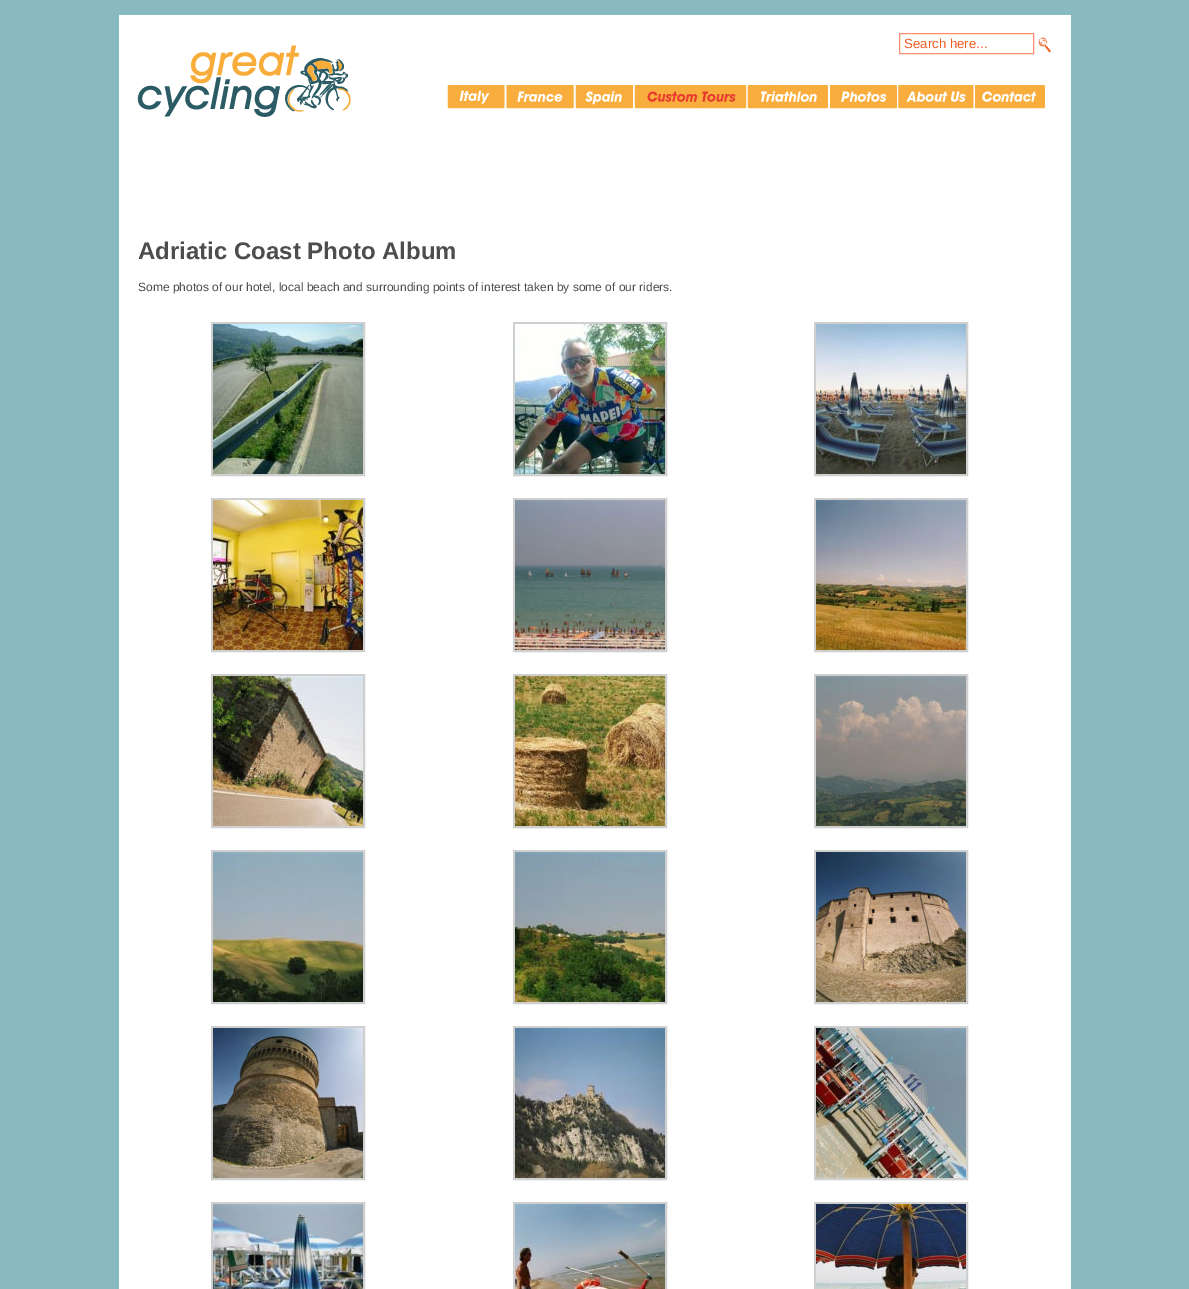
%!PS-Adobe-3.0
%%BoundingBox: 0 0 1189 1289
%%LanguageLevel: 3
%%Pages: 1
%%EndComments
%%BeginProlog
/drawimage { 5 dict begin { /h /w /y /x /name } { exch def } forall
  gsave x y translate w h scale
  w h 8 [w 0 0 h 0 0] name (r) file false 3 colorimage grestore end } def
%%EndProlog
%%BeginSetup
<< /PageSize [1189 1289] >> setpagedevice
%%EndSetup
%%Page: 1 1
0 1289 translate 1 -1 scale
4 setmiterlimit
0.537 0.729 0.753 setrgbcolor
0 0 1189 1289 rectfill
1 setgray
119 15 952 1274 rectfill
1 0.553 0.431 setrgbcolor
899.5 33.5 134 20 rectstroke
(images/1.raw) 1038 37 13 15 drawimage
(images/2.raw) 137 45 214 72 drawimage
(images/3.raw) 447 85 58 24 drawimage
(images/4.raw) 506 85 68 24 drawimage
(images/5.raw) 575 85 58 24 drawimage
(images/6.raw) 634 85 112 24 drawimage
(images/7.raw) 746 85 82 24 drawimage
(images/8.raw) 830 85 67 24 drawimage
(images/9.raw) 898 85 76 24 drawimage
(images/10.raw) 975 85 70 24 drawimage
0.812 setgray
2 setlinewidth
212 323 152 152 rectstroke
(images/11.raw) 213 324 150 150 drawimage
514 323 152 152 rectstroke
(images/12.raw) 515 324 150 150 drawimage
815 323 152 152 rectstroke
(images/13.raw) 816 324 150 150 drawimage
212 499 152 152 rectstroke
(images/14.raw) 213 500 150 150 drawimage
514 499 152 152 rectstroke
(images/15.raw) 515 500 150 150 drawimage
815 499 152 152 rectstroke
(images/16.raw) 816 500 150 150 drawimage
212 675 152 152 rectstroke
(images/17.raw) 213 676 150 150 drawimage
514 675 152 152 rectstroke
(images/18.raw) 515 676 150 150 drawimage
815 675 152 152 rectstroke
(images/19.raw) 816 676 150 150 drawimage
212 851 152 152 rectstroke
(images/20.raw) 213 852 150 150 drawimage
514 851 152 152 rectstroke
(images/21.raw) 515 852 150 150 drawimage
815 851 152 152 rectstroke
(images/22.raw) 816 852 150 150 drawimage
212 1027 152 152 rectstroke
(images/23.raw) 213 1028 150 150 drawimage
514 1027 152 152 rectstroke
(images/24.raw) 515 1028 150 150 drawimage
815 1027 152 152 rectstroke
(images/25.raw) 816 1028 150 150 drawimage
212 1203 152 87 rectstroke
(images/26.raw) 213 1204 150 85 drawimage
514 1203 152 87 rectstroke
(images/27.raw) 515 1204 150 85 drawimage
815 1203 152 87 rectstroke
(images/28.raw) 816 1204 150 85 drawimage
/LiberationSans-Regular [13.25 0 0 -13.25 0 0] selectfont
0.945 0.365 0.133 setrgbcolor
904 48 moveto (Search here...) show
/LiberationSans-Bold [24 0 0 -24 0 0] selectfont
0.302 setgray
138 259 moveto (Adriatic Coast Photo Album) show
/LiberationSans-Regular [12 0 0 -12 0 0] selectfont
138 291 moveto (Some photos of our hotel, local beach and surrounding points of interest taken by some of our riders.) show
showpage
%%EOF
